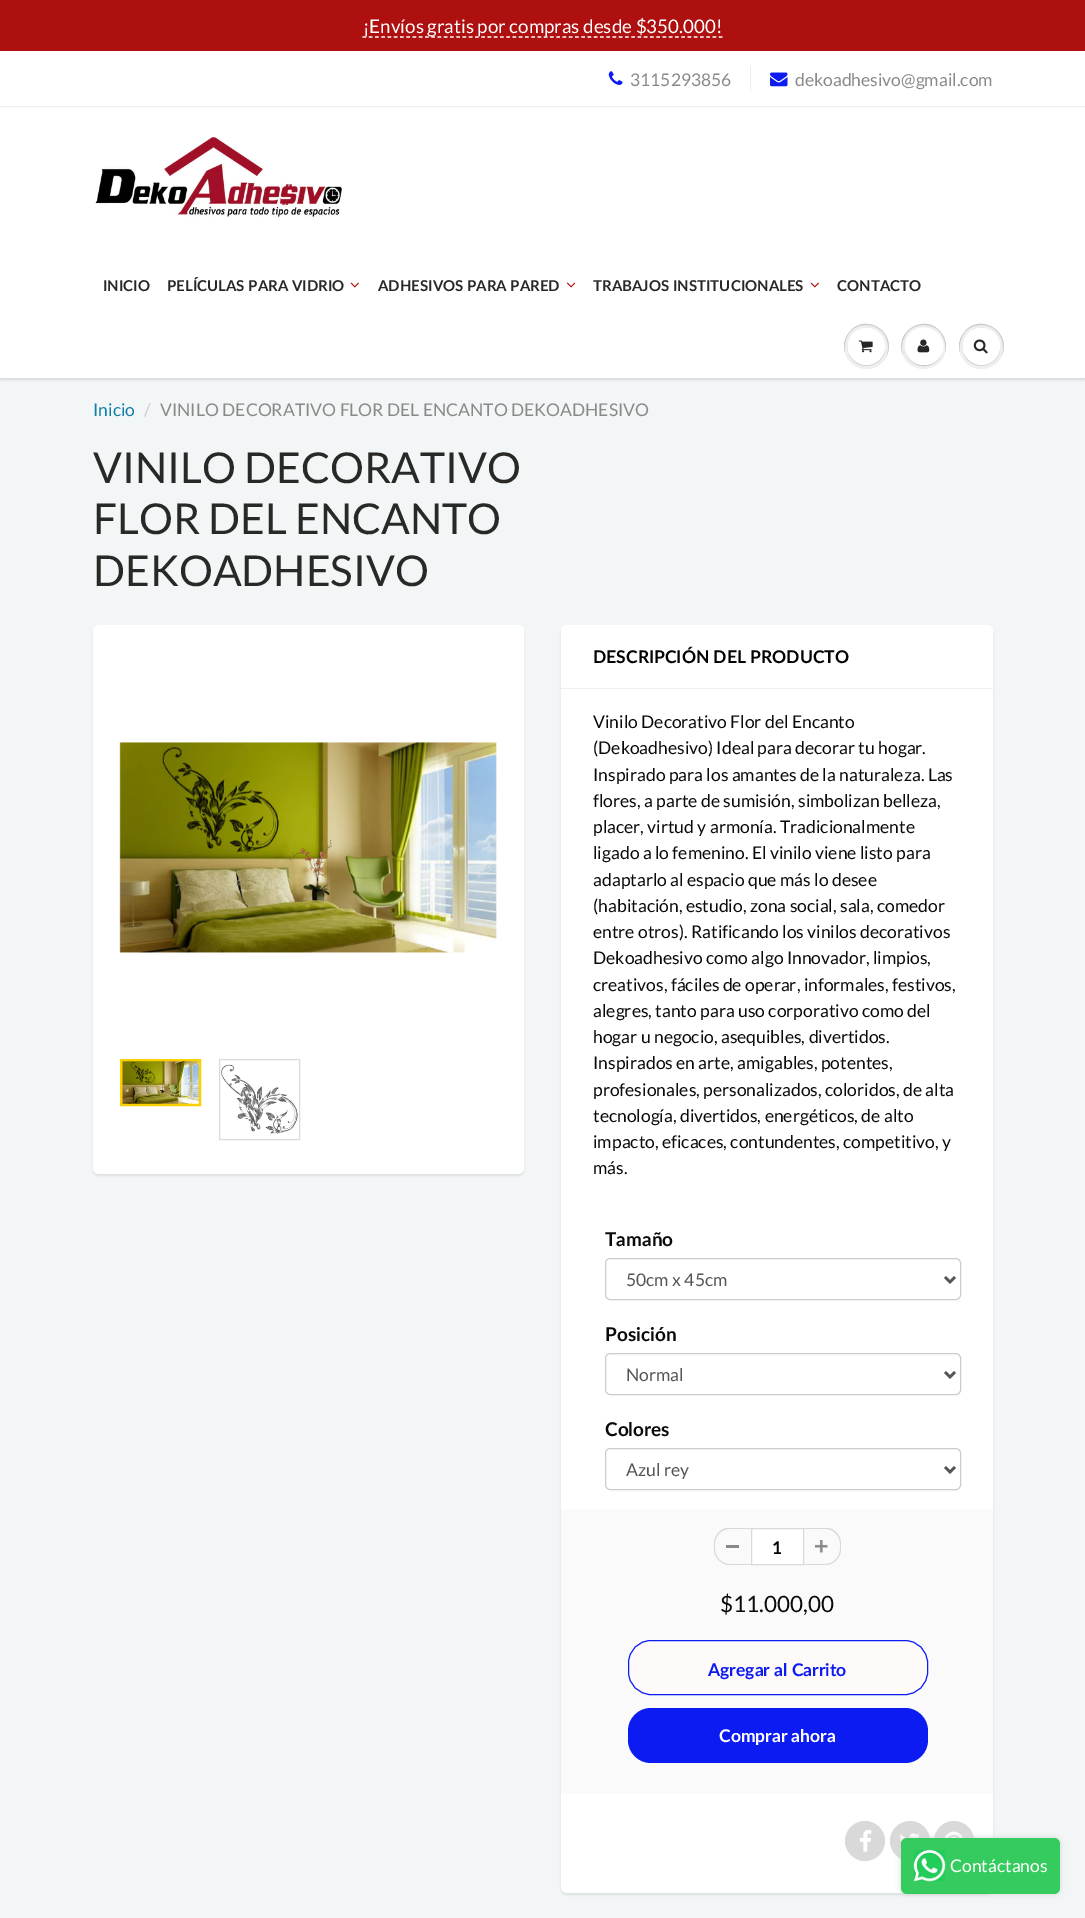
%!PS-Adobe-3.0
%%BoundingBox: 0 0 1085 1918
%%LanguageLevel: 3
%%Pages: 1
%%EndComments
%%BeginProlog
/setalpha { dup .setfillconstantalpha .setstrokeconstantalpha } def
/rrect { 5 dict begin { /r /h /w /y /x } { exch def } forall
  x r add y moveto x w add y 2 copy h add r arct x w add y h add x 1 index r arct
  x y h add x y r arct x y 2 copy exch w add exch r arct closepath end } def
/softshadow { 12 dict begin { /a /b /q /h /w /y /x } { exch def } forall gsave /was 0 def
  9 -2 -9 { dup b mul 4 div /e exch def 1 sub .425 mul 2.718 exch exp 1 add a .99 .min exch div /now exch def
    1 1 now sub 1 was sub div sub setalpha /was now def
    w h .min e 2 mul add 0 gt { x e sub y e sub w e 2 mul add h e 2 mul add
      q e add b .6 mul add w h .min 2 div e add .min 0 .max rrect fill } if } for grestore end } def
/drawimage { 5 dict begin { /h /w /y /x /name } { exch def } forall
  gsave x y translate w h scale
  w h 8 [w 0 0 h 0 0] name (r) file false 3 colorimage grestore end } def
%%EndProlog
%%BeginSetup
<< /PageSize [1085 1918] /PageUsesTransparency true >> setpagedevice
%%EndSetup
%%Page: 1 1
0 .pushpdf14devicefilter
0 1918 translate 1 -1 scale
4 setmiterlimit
1 setgray
0 0 1085 1918 rectfill
0.682 0.059 0.059 setrgbcolor
0 0 1085 51 rectfill
1 setgray
1.2 setlinewidth
[3.75 2.5] 0 setdash
newpath 362.5 37 moveto 722.5 37 lineto stroke
(images/1.raw) 608 71 15 14 drawimage
0.925 0.937 0.937 setrgbcolor
750 66 1 25 rectfill
(images/2.raw) 770 72 18 15 drawimage
0.953 0.965 0.965 setrgbcolor
0 378 1085 1540 rectfill
0.043 0.098 0.11 setrgbcolor
0 109 1085 271 0 1 0.12 softshadow
1 setgray
0 108 1085 270 rectfill
0.925 0.937 0.937 setrgbcolor
0 106 1085 1 rectfill
(images/3.raw) 95 136 247 83 drawimage
(images/4.raw) 350 282 9 6 drawimage
(images/5.raw) 566 282 10 6 drawimage
(images/4.raw) 810 282 9 6 drawimage
0.929 0.937 0.937 setrgbcolor
newpath 866.5 346.5 22.5 0 360 arc closepath fill
0.788 0.796 0.796 setrgbcolor
newpath 866 325 moveto 884 325 891 342 887 355 curveto 897 331 863 311 848 334 curveto 844 339 843 346 845 352 curveto 843 339 850 325 866 325 curveto closepath fill
newpath 849 354 moveto 856.5 373 885.5 367.5 885 347 curveto 884.5 366.5 857.5 371.5 849 354 curveto closepath fill
1 setgray
newpath 866.5 346.5 18.5 0 360 arc closepath fill
newpath 866 329 moveto 880 329 886 340.5 884.5 351 curveto 889.5 331.5 863 319 851 336 curveto 849 339.5 848 343 848 347 curveto 848 338 854 329 866 329 curveto closepath fill
(images/6.raw) 858 340 15 13 drawimage
0.929 0.937 0.937 setrgbcolor
newpath 923.5 346.5 22.5 0 360 arc closepath fill
0.788 0.796 0.796 setrgbcolor
newpath 924 325 moveto 940 325 947 339 945 352 curveto 947 346 946 339 942 334 curveto 927 311 893 331 903 355 curveto 899 342 906 325 924 325 curveto closepath fill
newpath 905 347 moveto 905 352 907 357 910.5 360.5 curveto 925 375 949.5 359 941.5 340 curveto 947.5 358.5 925 373.5 910.5 359.5 curveto 907 356.5 905 351.5 905 347 curveto closepath fill
1 setgray
905 328 38 37 18.5 rrect fill
newpath 924 329 moveto 940 329 946 346 940 357 curveto 954 337 922 315 908 336 curveto 905 340 904 346 906 351 curveto 904 341 910 329 924 329 curveto closepath fill
(images/7.raw) 917 339 13 14 drawimage
0.929 0.937 0.937 setrgbcolor
newpath 981.5 346.5 22.5 0 360 arc closepath fill
0.788 0.796 0.796 setrgbcolor
newpath 981 325 moveto 999 325 1006 342 1002 355 curveto 1012 331 978 311 963 334 curveto 959 339 958 346 960 352 curveto 958 339 965 325 981 325 curveto closepath fill
newpath 964 354 moveto 971.5 373 1000.5 367.5 1000 347 curveto 999.5 366.5 972.5 371.5 964 354 curveto closepath fill
1 setgray
newpath 981.5 346.5 18.5 0 360 arc closepath fill
newpath 981 329 moveto 995 329 1001 340.5 999.5 351 curveto 1004.5 331.5 978 319 966 336 curveto 964 339.5 963 343 963 347 curveto 963 338 969 329 981 329 curveto closepath fill
(images/8.raw) 973 339 15 15 drawimage
0.043 0.098 0.11 setrgbcolor
93 628 431 548 6 1 0.1 softshadow
1 setgray
93 625 431 549 6 rrect fill
(images/9.raw) 119 742 378 211 drawimage
0.984 0.812 0 setrgbcolor
3 setlinewidth
[] 0 setdash
121.5 1060.5 78 44 rectstroke
(images/10.raw) 122 1061 77 43 drawimage
0.859 setgray
1 setlinewidth
219.5 1059.5 80 80 rectstroke
(images/11.raw) 221 1064 77 70 drawimage
0.043 0.098 0.11 setrgbcolor
561 628 432 1267 6 1 0.1 softshadow
1 setgray
561 625 432 1268 6 rrect fill
0.937 setgray
561 688 432 1 rectfill
0.8 setgray
605.5 1258.5 355 41 4.5 rrect stroke
0.333 setgray
2.5 setlinewidth
newpath 945 1277 moveto 950 1282 lineto 955 1277 lineto stroke
0.8 setgray
1 setlinewidth
605.5 1353.5 355 41 4.5 rrect stroke
0.333 setgray
2.5 setlinewidth
newpath 945 1372 moveto 950 1377 lineto 955 1372 lineto stroke
0.8 setgray
1 setlinewidth
605.5 1448.5 355 41 4.5 rrect stroke
0.333 setgray
2.5 setlinewidth
newpath 945 1467 moveto 950 1472 lineto 955 1467 lineto stroke
0.98 setgray
561 1509 432 285 rectfill
0.537 setgray
726 1545 13 3 rectfill
gsave
714 1528 127 37 rectclip
0.843 0.859 0.859 setrgbcolor
newpath 730 1527.5 moveto 751 1527.5 lineto 751 1565 lineto 730 1565 lineto 721 1565 714 1557.5 714 1549 curveto 714 1544 lineto 714 1535 721 1527.5 730 1527.5 curveto closepath 730 1529 moveto 751 1529 lineto 751 1564 lineto 730 1564 lineto 721.5 1564 715 1557 715 1549 curveto 715 1544 lineto 715 1535.5 721.5 1529 730 1529 curveto closepath eofill
grestore
1 setgray
newpath 751.5 1528.5 moveto 803.5 1528.5 lineto 803.5 1564.5 lineto 751.5 1564.5 lineto closepath gsave fill grestore
0.843 0.859 0.859 setrgbcolor
1 setlinewidth
stroke
(images/12.raw) 815 1540 13 13 drawimage
gsave
714 1528 127 37 rectclip
newpath 804 1527.5 moveto 825 1527.5 lineto 834 1527.5 841 1535 841 1544 curveto 841 1549 lineto 841 1557.5 834 1565 825 1565 curveto 804 1565 lineto closepath 804 1529 moveto 825 1529 lineto 833.5 1529 840 1535.5 840 1544 curveto 840 1549 lineto 840 1557 833.5 1564 825 1564 curveto 804 1564 lineto closepath eofill
grestore
1 0.98 0.98 setrgbcolor
628.5 1640.5 299 54 22.5 rrect gsave fill grestore
0.047 0.106 0.949 setrgbcolor
stroke
628 1708 300 55 23 rrect fill
0.851 setgray
newpath 865 1841 20 0 360 arc closepath fill
(images/13.raw) 860 1830 12 22 drawimage
newpath 910 1841 20 0 360 arc closepath fill
(images/14.raw) 899 1833 21 16 drawimage
newpath 954 1841 20 0 360 arc closepath fill
(images/15.raw) 944 1831 19 7 drawimage
0.827 setgray
901 1838 159 56 6 3 1 softshadow
0.208 0.796 0.369 setrgbcolor
901 1838 159 56 6 rrect fill
(images/16.raw) 913 1850 33 32 drawimage
/Lato-Regular [18.75 0 0 -18.75 0 0] selectfont
1 setgray
363 33 moveto (¡Envíos gratis por compras desde $350.000!) show
/Lato-Regular [17.5 0 0 -17.5 0 0] selectfont
0.537 setgray
630 86 moveto (3115293856) show
795 86 moveto (dekoadhesivo@gmail.com) show
/Lato-Bold [15 0 0 -15 0 0] selectfont
0.157 0.157 0.153 setrgbcolor
103 291 moveto (INICIO) show
167 291 moveto (PELÍCULAS PARA VIDRIO) show
378 291 moveto (ADHESIVOS PARA PARED) show
593 291 moveto (TRABAJOS INSTITUCIONALES) show
837 291 moveto (CONTACTO) show
/Lato-Regular [17.5 0 0 -17.5 0 0] selectfont
0.063 0.498 0.659 setrgbcolor
93 416 moveto (Inicio) show
0.8 setgray
144 416 moveto (/) show
0.537 setgray
160 416 moveto (VINILO DECORATIVO FLOR DEL ENCANTO DEKOADHESIVO) show
/Lato-Regular [42.5 0 0 -42.5 0 0] selectfont
0.157 0.157 0.153 setrgbcolor
93 483 moveto (VINILO DECORATIVO) show
93 534 moveto (FLOR DEL ENCANTO) show
93 586 moveto (DEKOADHESIVO) show
/Lato-Bold [17.5 0 0 -17.5 0 0] selectfont
0.004 setgray
593 663 moveto (DESCRIPCIÓN DEL PRODUCTO) show
/Lato-Regular [17.5 0 0 -17.5 0 0] selectfont
0.039 setgray
593 728 moveto (Vinilo Decorativo Flor del Encanto) show
593 754 moveto (\(Dekoadhesivo\) Ideal para decorar tu hogar.) show
593 781 moveto (Inspirado para los amantes de la naturaleza. Las) show
593 807 moveto (flores, a parte de sumisión, simbolizan belleza,) show
593 833 moveto (placer, virtud y armonía. Tradicionalmente) show
593 859 moveto (ligado a lo femenino. El vinilo viene listo para) show
593 886 moveto (adaptarlo al espacio que más lo desee) show
593 912 moveto (\(habitación, estudio, zona social, sala, comedor) show
593 938 moveto (entre otros\). Ratificando los vinilos decorativos) show
593 964 moveto (Dekoadhesivo como algo Innovador, limpios,) show
593 991 moveto (creativos, fáciles de operar, informales, festivos,) show
593 1017 moveto (alegres, tanto para uso corporativo como del) show
593 1043 moveto (hogar u negocio, asequibles, divertidos.) show
593 1069 moveto (Inspirados en arte, amigables, potentes,) show
593 1096 moveto (profesionales, personalizados, coloridos, de alta) show
593 1122 moveto (tecnología, divertidos, energéticos, de alto) show
593 1148 moveto (impacto, eficaces, contundentes, competitivo, y) show
593 1174 moveto (más.) show
/Lato-Bold [19 0 0 -19 0 0] selectfont
605 1246 moveto (Tamaño) show
/Lato-Regular [17.5 0 0 -17.5 0 0] selectfont
0.333 setgray
626 1286 moveto (50cm x 45cm) show
/Lato-Bold [19 0 0 -19 0 0] selectfont
0.039 setgray
605 1341 moveto (Posición) show
/Lato-Regular [17.5 0 0 -17.5 0 0] selectfont
0.333 setgray
626 1381 moveto (Normal) show
/Lato-Bold [19 0 0 -19 0 0] selectfont
0.039 setgray
605 1436 moveto (Colores) show
/Lato-Regular [17.5 0 0 -17.5 0 0] selectfont
0.333 setgray
626 1476 moveto (Azul rey) show
/Lato-Bold [17.5 0 0 -17.5 0 0] selectfont
0.004 setgray
772 1554 moveto (1) show
/Lato-Regular [22.5 0 0 -22.5 0 0] selectfont
0.039 setgray
720 1612 moveto ($11.000,00) show
/Lato-Bold [17.5 0 0 -17.5 0 0] selectfont
0.047 0.106 0.949 setrgbcolor
708 1676 moveto (Agregar al Carrito) show
1 setgray
719 1742 moveto (Comprar ahora) show
/Lato-Regular [17.5 0 0 -17.5 0 0] selectfont
950 1872 moveto (Contáctanos) show
.poppdf14devicefilter showpage
%%EOF
